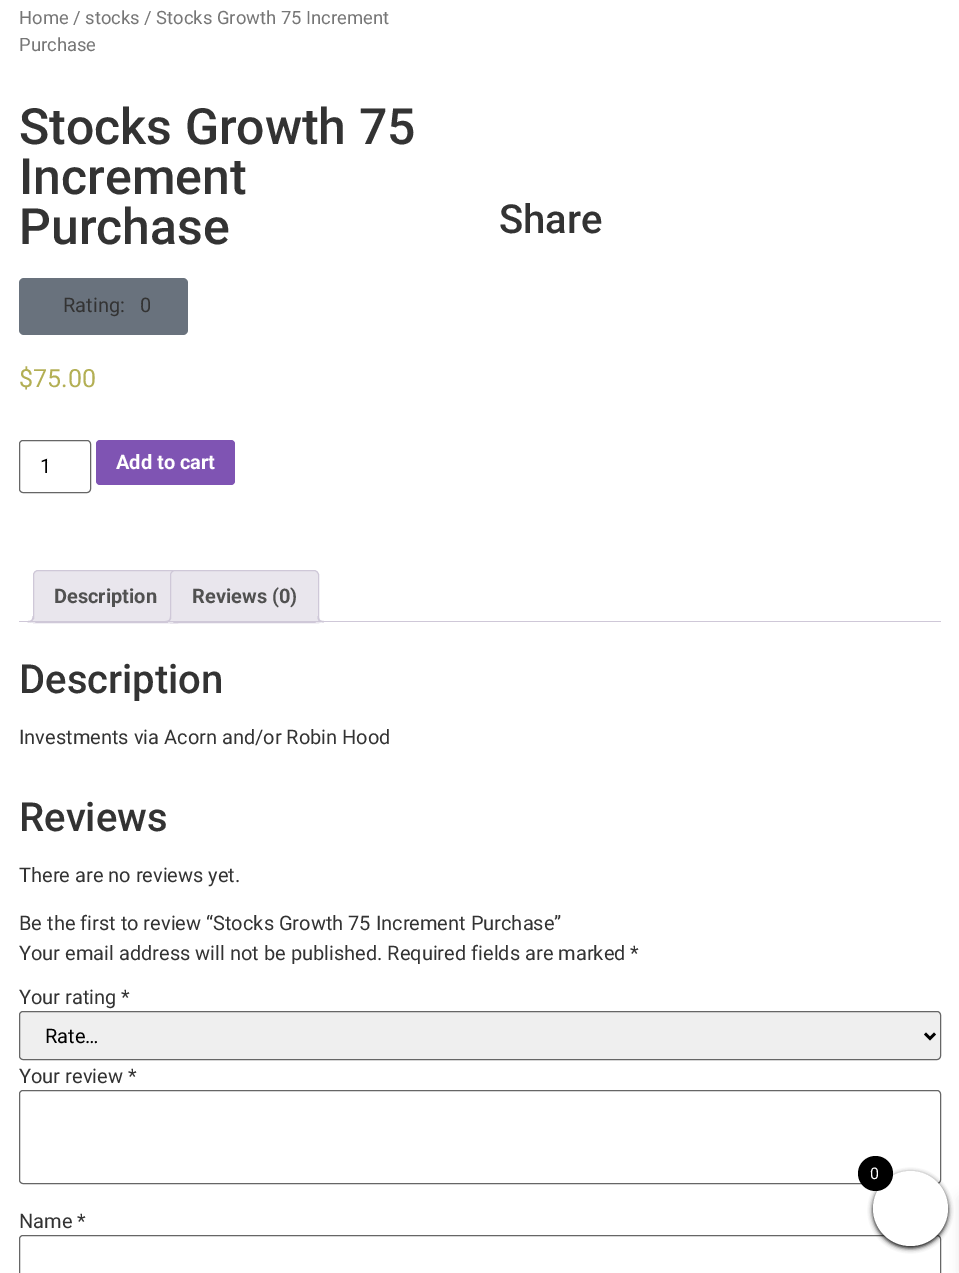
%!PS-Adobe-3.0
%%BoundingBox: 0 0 959 1273
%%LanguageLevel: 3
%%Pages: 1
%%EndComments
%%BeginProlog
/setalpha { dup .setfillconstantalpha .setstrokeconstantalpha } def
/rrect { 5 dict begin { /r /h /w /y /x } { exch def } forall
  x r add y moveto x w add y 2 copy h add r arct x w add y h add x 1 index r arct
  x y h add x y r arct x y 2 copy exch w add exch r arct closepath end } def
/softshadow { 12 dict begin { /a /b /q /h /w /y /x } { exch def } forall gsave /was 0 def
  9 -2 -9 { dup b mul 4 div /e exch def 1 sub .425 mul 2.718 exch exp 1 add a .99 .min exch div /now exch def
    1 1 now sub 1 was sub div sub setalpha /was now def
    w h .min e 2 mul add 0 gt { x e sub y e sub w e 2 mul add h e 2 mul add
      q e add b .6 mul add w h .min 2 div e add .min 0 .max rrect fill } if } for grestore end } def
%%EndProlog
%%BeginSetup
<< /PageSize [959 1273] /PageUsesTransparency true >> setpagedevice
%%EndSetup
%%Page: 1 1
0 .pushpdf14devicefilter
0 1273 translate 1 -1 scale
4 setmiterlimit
1 setgray
0 0 959 1273 rectfill
0.412 0.447 0.49 setrgbcolor
19 278 169 57 5 rrect fill
0.4 setgray
19.5 440.5 71 52 3.5 rrect stroke
0.498 0.329 0.702 setrgbcolor
96 440 139 45 4 rrect fill
0.914 0.902 0.929 setrgbcolor
newpath 38 570.5 moveto 173 570.5 lineto 175.5 570.5 177.5 572.5 177.5 575 curveto 177.5 622.5 lineto 33.5 622.5 lineto 33.5 575 lineto 33.5 572.5 35.5 570.5 38 570.5 curveto closepath gsave fill grestore
0.812 0.784 0.847 setrgbcolor
stroke
gsave
19 570 922 53 rectclip
0.914 0.902 0.929 setrgbcolor
newpath 30 622.5 moveto 30 625 lineto 34 625 36 623 36 619 curveto 33.5 619 lineto 33 620.5 31.5 622 30 622.5 curveto closepath fill
grestore
newpath 27.5 616 moveto 34 616 lineto 34 620.5 32 622.5 27.5 622.5 curveto closepath 27.5 616 moveto 32.5 616 lineto 32.5 620 31 621 27.5 621 curveto closepath eofill
0.914 0.902 0.929 setrgbcolor
newpath 175 570.5 moveto 314 570.5 lineto 316.5 570.5 318.5 572.5 318.5 575 curveto 318.5 622.5 lineto 170.5 622.5 lineto 170.5 575 lineto 170.5 572.5 172.5 570.5 175 570.5 curveto closepath gsave fill grestore
0.812 0.784 0.847 setrgbcolor
stroke
gsave
19 570 922 53 rectclip
0.914 0.902 0.929 setrgbcolor
newpath 168 622 moveto 168 625 lineto 172 625 174 623 174 619 curveto 171 619 lineto 170.5 620.5 169.5 621.5 168 622 curveto closepath fill
grestore
newpath 165 616 moveto 171 616 lineto 171 620.5 169.5 622.5 165 622.5 curveto closepath 165 616 moveto 170 616 lineto 170 620 168.5 621 165 621 curveto closepath eofill
gsave
19 570 922 53 rectclip
0.914 0.902 0.929 setrgbcolor
newpath 315 619 moveto 315 623 317 625 321 625 curveto 321 622.5 lineto 319.5 622 318 620.5 317.5 619 curveto closepath fill
grestore
newpath 317.5 616 moveto 324 616 lineto 324 622.5 lineto 320.5 622.5 317.5 621 317.5 617.5 curveto closepath 319 616 moveto 324 616 lineto 324 621 lineto 321.5 621 319 620.5 319 617.5 curveto closepath eofill
19 621 922 1 rectfill
0.937 setgray
19.5 1011.5 921 48 3.5 rrect gsave fill grestore
0.4 setgray
stroke
0 setgray
2.5 setlinewidth
newpath 925 1033.5 moveto 930 1038.5 lineto 935 1033.5 lineto stroke
0.4 setgray
1 setlinewidth
19.5 1090.5 921 93 3.5 rrect stroke
19.5 1235.5 921 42 3.5 rrect stroke
0 setgray
873 1173 75 75 37.5 2.5 1 softshadow
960 1198 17 75 0 6 0.1 softshadow
1 setgray
newpath 910.5 1208.5 37.5 0 360 arc closepath fill
0 setgray
newpath 875.5 1173.5 17.5 0 360 arc closepath fill
/Roboto-Regular [18.4 0 0 -18.4 0 0] selectfont
0.463 setgray
19 24 moveto (Home / stocks / Stocks Growth 75 Increment) show
19 51 moveto (Purchase) show
/Roboto-Medium [50 0 0 -50 0 0] selectfont
0.2 setgray
19 144 moveto (Stocks Growth 75) show
19 194 moveto (Increment) show
19 244 moveto (Purchase) show
/Roboto-Regular [20 0 0 -20 0 0] selectfont
63 312 moveto (Rating:   0) show
/Roboto-Regular [25 0 0 -25 0 0] selectfont
0.702 0.686 0.329 setrgbcolor
19 387 moveto ($75.00) show
/Roboto-Regular [20 0 0 -20 0 0] selectfont
0 setgray
40 473 moveto (1) show
/Roboto-Bold [20 0 0 -20 0 0] selectfont
1 setgray
116 469 moveto (Add to cart) show
/Roboto-Medium [40 0 0 -40 0 0] selectfont
0.2 setgray
499 233 moveto (Share) show
/Roboto-Bold [20 0 0 -20 0 0] selectfont
0.318 setgray
54 603 moveto (Description) show
192 603 moveto (Reviews \(0\)) show
/Roboto-Medium [40 0 0 -40 0 0] selectfont
0.2 setgray
19 693 moveto (Description) show
/Roboto-Regular [20 0 0 -20 0 0] selectfont
19 744 moveto (Investments via Acorn and/or Robin Hood) show
/Roboto-Medium [40 0 0 -40 0 0] selectfont
19 831 moveto (Reviews) show
/Roboto-Regular [20 0 0 -20 0 0] selectfont
19 882 moveto (There are no reviews yet.) show
19 930 moveto (Be the first to review “Stocks Growth 75 Increment Purchase”) show
19 960 moveto (Your email address will not be published. Required fields are marked *) show
19 1004 moveto (Your rating *) show
0 setgray
45 1043 moveto (Rate…) show
0.2 setgray
19 1083 moveto (Your review *) show
19 1228 moveto (Name *) show
/Roboto-Regular [16 0 0 -16 0 0] selectfont
1 setgray
870 1179 moveto (0) show
.poppdf14devicefilter showpage
%%EOF
